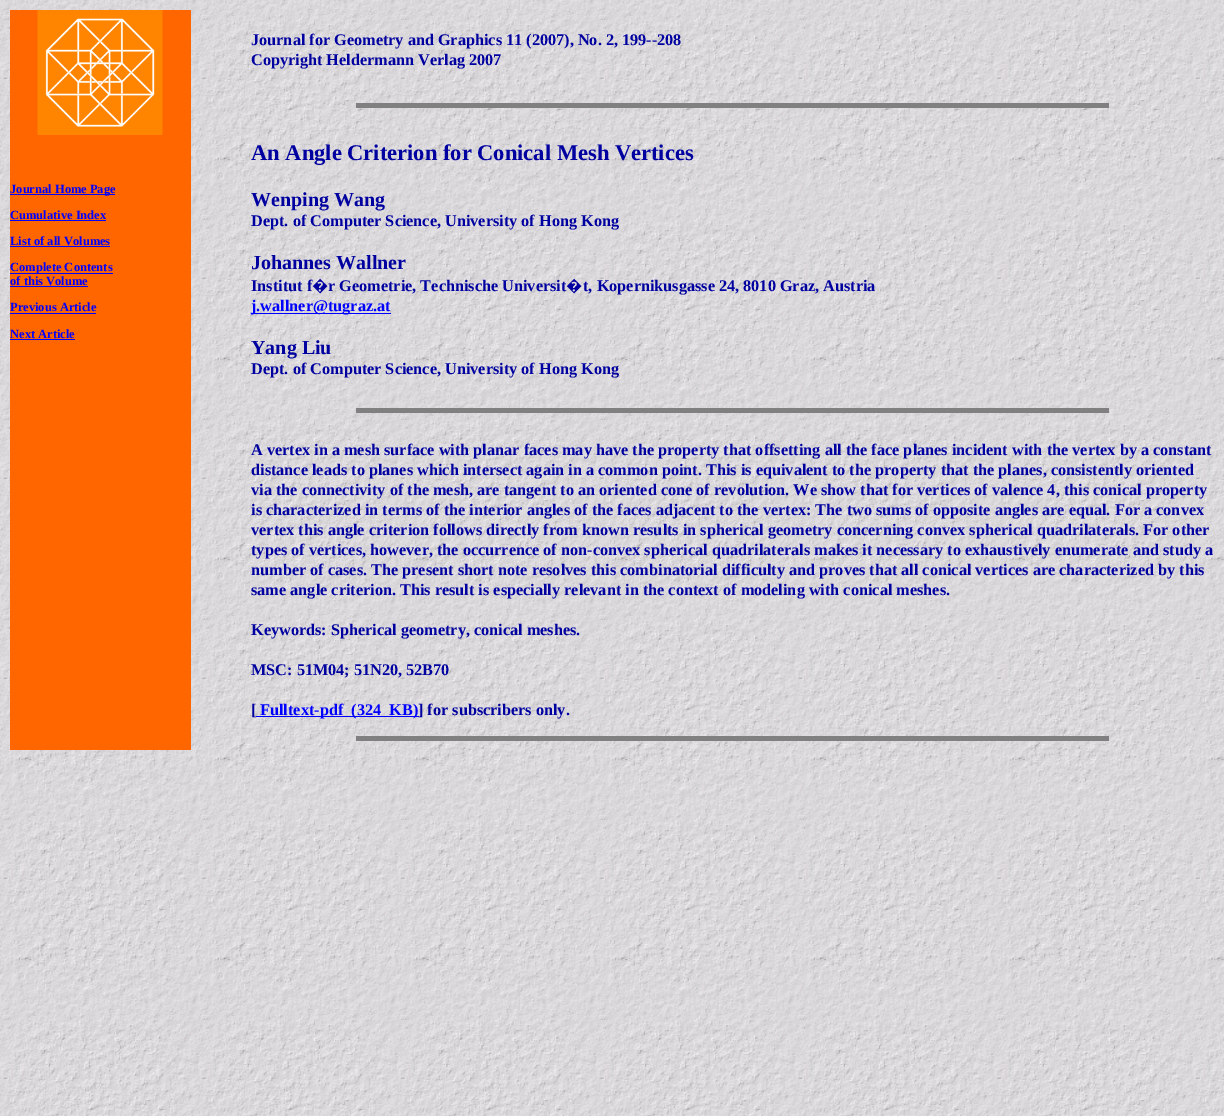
%!PS-Adobe-3.0
%%BoundingBox: 0 0 1224 1116
%%LanguageLevel: 3
%%Pages: 1
%%EndComments
%%BeginProlog
/drawimage { 5 dict begin { /h /w /y /x /name } { exch def } forall
  gsave x y translate w h scale
  w h 8 [w 0 0 h 0 0] name (r) file false 3 colorimage grestore end } def
%%EndProlog
%%BeginSetup
<< /PageSize [1224 1116] >> setpagedevice
%%EndSetup
%%Page: 1 1
0 1116 translate 1 -1 scale
4 setmiterlimit
1 setgray
0 0 1224 1116 rectfill
(images/1.raw) 0 0 1224 1116 drawimage
1 0.4 0 setrgbcolor
10 10 181 740 rectfill
(images/2.raw) 37 10 126 125 drawimage
0 0 1 setrgbcolor
10 194 105 1 rectfill
10 220 96 1 rectfill
10 246 100 1 rectfill
10 273 103 1 rectfill
10 286 78 1 rectfill
10 313 86 1 rectfill
10 339 65 1 rectfill
0.502 setgray
356 103 753 5 rectfill
0 0 1 setrgbcolor
251 313 140 1 rectfill
0.502 setgray
356 408 753 5 rectfill
0 0 1 setrgbcolor
256 716 163 1 rectfill
0.502 setgray
356 736 753 5 rectfill
/LiberationSerif-Bold [12.5 0 0 -12.5 0 0] selectfont
0 0 1 setrgbcolor
10 193 moveto (Journal Home Page) show
10 219 moveto (Cumulative Index) show
10 245 moveto (List of all Volumes) show
10 271 moveto (Complete Contents) show
10 285 moveto (of this Volume) show
10 311 moveto (Previous Article) show
10 338 moveto (Next Article) show
/LiberationSerif-Bold [16.25 0 0 -16.25 0 0] selectfont
0 0 0.627 setrgbcolor
251 45 moveto (Journal for Geometry and Graphics 11 \(2007\), No. 2, 199--208) show
251 65 moveto (Copyright Heldermann Verlag 2007) show
/LiberationSerif-Bold [22.5 0 0 -22.5 0 0] selectfont
251 160 moveto (An Angle Criterion for Conical Mesh Vertices) show
/LiberationSerif-Bold [20 0 0 -20 0 0] selectfont
251 206 moveto (Wenping Wang) show
/LiberationSerif-Bold [16.25 0 0 -16.25 0 0] selectfont
251 226 moveto (Dept. of Computer Science, University of Hong Kong) show
/LiberationSerif-Bold [20 0 0 -20 0 0] selectfont
251 269 moveto (Johannes Wallner) show
/LiberationSerif-Bold [16.25 0 0 -16.25 0 0] selectfont
251 291 moveto (Institut f) show
/NotoSans-Black [16.25 0 0 -16.25 0 0] selectfont
312 291 moveto (�) show
/LiberationSerif-Bold [16.25 0 0 -16.25 0 0] selectfont
328 291 moveto (r Geometrie, Technische Universit) show
/NotoSans-Black [16.25 0 0 -16.25 0 0] selectfont
566 291 moveto (�) show
/LiberationSerif-Bold [16.25 0 0 -16.25 0 0] selectfont
583 291 moveto (t, Kopernikusgasse 24, 8010 Graz, Austria) show
0 0 1 setrgbcolor
251 311 moveto (j.wallner@tugraz.at) show
/LiberationSerif-Bold [20 0 0 -20 0 0] selectfont
0 0 0.627 setrgbcolor
251 354 moveto (Yang Liu) show
/LiberationSerif-Bold [16.25 0 0 -16.25 0 0] selectfont
251 374 moveto (Dept. of Computer Science, University of Hong Kong) show
251 455 moveto (A vertex in a mesh surface with planar faces may have the property that offsetting all the face planes incident with the vertex by a constant) show
251 475 moveto (distance leads to planes which intersect again in a common point. This is equivalent to the property that the planes, consistently oriented) show
251 495 moveto (via the connectivity of the mesh, are tangent to an oriented cone of revolution. We show that for vertices of valence 4, this conical property) show
251 515 moveto (is characterized in terms of the interior angles of the faces adjacent to the vertex: The two sums of opposite angles are equal. For a convex) show
251 535 moveto (vertex this angle criterion follows directly from known results in spherical geometry concerning convex spherical quadrilaterals. For other) show
251 555 moveto (types of vertices, however, the occurrence of non-convex spherical quadrilaterals makes it necessary to exhaustively enumerate and study a) show
251 575 moveto (number of cases. The present short note resolves this combinatorial difficulty and proves that all conical vertices are characterized by this) show
251 595 moveto (same angle criterion. This result is especially relevant in the context of modeling with conical meshes.) show
251 635 moveto (Keywords: Spherical geometry, conical meshes.) show
251 675 moveto (MSC: 51M04; 51N20, 52B70) show
251 715 moveto ([) show
0 0 1 setrgbcolor
260 715 moveto (Fulltext-pdf  \(324  KB\)) show
0 0 0.627 setrgbcolor
418 715 moveto (] for subscribers only.) show
showpage
%%EOF
